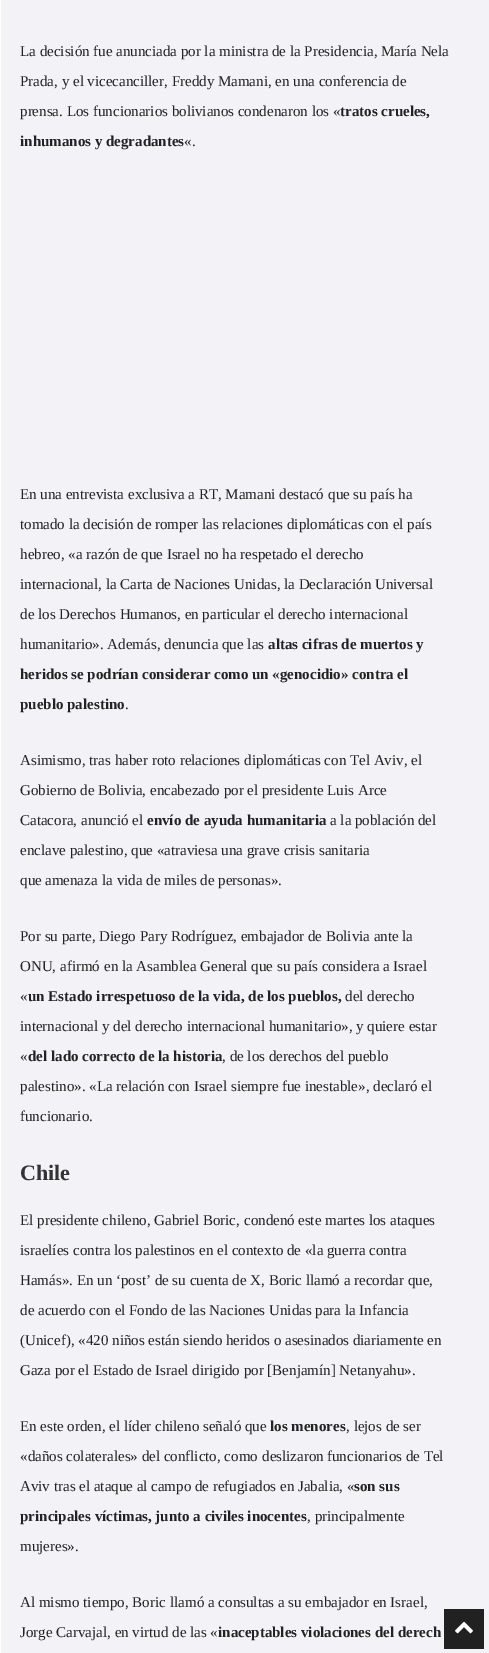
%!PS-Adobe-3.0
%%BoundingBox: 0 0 489 1653
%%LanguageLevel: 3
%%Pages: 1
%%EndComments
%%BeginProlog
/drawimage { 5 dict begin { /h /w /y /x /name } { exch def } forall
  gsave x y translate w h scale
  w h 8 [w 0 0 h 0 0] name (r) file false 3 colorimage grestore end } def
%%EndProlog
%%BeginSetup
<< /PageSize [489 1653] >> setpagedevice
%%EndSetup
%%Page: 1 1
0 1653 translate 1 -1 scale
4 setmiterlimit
1 setgray
0 0 489 1653 rectfill
0.949 0.949 0.969 setrgbcolor
1 0 488 1653 rectfill
0.129 setgray
444 1609 40 40 rectfill
(images/1.raw) 455 1621 18 13 drawimage
/LiberationSerif-Regular [15 0 0 -15 0 0] selectfont
0.133 setgray
20 56 moveto (La decisión fue anunciada por la ministra de la Presidencia, María Nela) show
20 86 moveto (Prada, y el vicecanciller, Freddy Mamani, en una conferencia de) show
20 116 moveto (prensa. Los funcionarios bolivianos condenaron los «) show
/LiberationSerif-Bold [15 0 0 -15 0 0] selectfont
340 116 moveto (tratos crueles,) show
20 146 moveto (inhumanos y degradantes) show
/LiberationSerif-Regular [15 0 0 -15 0 0] selectfont
184 146 moveto («.) show
20 499 moveto (En una entrevista exclusiva a RT, Mamani) show
279 499 moveto (destacó) show
328 499 moveto (que su país ha) show
20 529 moveto (tomado la decisión de romper las relaciones diplomáticas con el país) show
20 559 moveto (hebreo, «a razón de que Israel no ha respetado el derecho) show
20 589 moveto (internacional, la Carta de Naciones Unidas, la Declaración Universal) show
20 619 moveto (de los Derechos Humanos, en particular el derecho internacional) show
20 649 moveto (humanitario». Además, denuncia que las) show
/LiberationSerif-Bold [15 0 0 -15 0 0] selectfont
268 649 moveto (altas cifras de muertos y) show
20 679 moveto (heridos se podrían considerar como un «genocidio» contra el) show
20 709 moveto (pueblo palestino) show
/LiberationSerif-Regular [15 0 0 -15 0 0] selectfont
125 709 moveto (.) show
20 765 moveto (Asimismo, tras haber roto relaciones diplomáticas con Tel Aviv, el) show
20 795 moveto (Gobierno de Bolivia, encabezado por el presidente Luis Arce) show
20 825 moveto (Catacora,) show
81 825 moveto (anunció) show
132 825 moveto (el) show
/LiberationSerif-Bold [15 0 0 -15 0 0] selectfont
147 825 moveto (envío de ayuda humanitaria) show
/LiberationSerif-Regular [15 0 0 -15 0 0] selectfont
330 825 moveto (a la población del) show
20 855 moveto (enclave palestino, que «atraviesa una grave crisis sanitaria) show
20 885 moveto (que) show
45 885 moveto (amenaza) show
102 885 moveto (la vida de miles de personas».) show
20 941 moveto (Por su parte, Diego Pary Rodríguez, embajador de Bolivia ante la) show
20 971 moveto (ONU,) show
60 971 moveto (afirmó) show
104 971 moveto (en la Asamblea General que su país considera a Israel) show
20 1001 moveto («) show
/LiberationSerif-Bold [15 0 0 -15 0 0] selectfont
28 1001 moveto (un Estado irrespetuoso de la vida, de los pueblos,) show
/LiberationSerif-Regular [15 0 0 -15 0 0] selectfont
345 1001 moveto (del derecho) show
20 1031 moveto (internacional y del derecho internacional humanitario», y quiere estar) show
20 1061 moveto («) show
/LiberationSerif-Bold [15 0 0 -15 0 0] selectfont
28 1061 moveto (del lado correcto de la historia) show
/LiberationSerif-Regular [15 0 0 -15 0 0] selectfont
222 1061 moveto (, de los derechos del pueblo) show
20 1091 moveto (palestino». «La relación con Israel siempre fue inestable», declaró el) show
20 1121 moveto (funcionario.) show
/LiberationSerif-Bold [22 0 0 -22 0 0] selectfont
0.2 setgray
20 1180 moveto (Chile) show
/LiberationSerif-Regular [15 0 0 -15 0 0] selectfont
0.133 setgray
20 1225 moveto (El presidente chileno, Gabriel Boric,) show
244 1225 moveto (condenó) show
298 1225 moveto (este martes los ataques) show
20 1255 moveto (israelíes contra los palestinos en el contexto de «la guerra contra) show
20 1285 moveto (Hamás». En un ‘post’ de su cuenta de X, Boric llamó a recordar que,) show
20 1315 moveto (de acuerdo con el Fondo de las Naciones Unidas para la Infancia) show
20 1345 moveto (\(Unicef\), «420 niños están siendo heridos o asesinados diariamente en) show
20 1375 moveto (Gaza por el Estado de Israel dirigido por [Benjamín] Netanyahu».) show
20 1431 moveto (En este orden, el líder chileno señaló que) show
/LiberationSerif-Bold [15 0 0 -15 0 0] selectfont
270 1431 moveto (los menores) show
/LiberationSerif-Regular [15 0 0 -15 0 0] selectfont
346 1431 moveto (, lejos de ser) show
20 1461 moveto («daños colaterales» del conflicto, como) show
262 1461 moveto (deslizaron) show
327 1461 moveto (funcionarios de Tel) show
20 1491 moveto (Aviv tras el ataque al campo de refugiados en Jabalia, «) show
/LiberationSerif-Bold [15 0 0 -15 0 0] selectfont
354 1491 moveto (son sus) show
20 1521 moveto (principales víctimas, junto a civiles inocentes) show
/LiberationSerif-Regular [15 0 0 -15 0 0] selectfont
307 1521 moveto (, principalmente) show
20 1551 moveto (mujeres».) show
20 1607 moveto (Al mismo tiempo, Boric) show
170 1607 moveto (llamó) show
208 1607 moveto (a consultas a su embajador en Israel,) show
20 1637 moveto (Jorge Carvajal, en virtud de las «) show
/LiberationSerif-Bold [15 0 0 -15 0 0] selectfont
218 1637 moveto (inaceptables violaciones del derech) show
showpage
%%EOF
